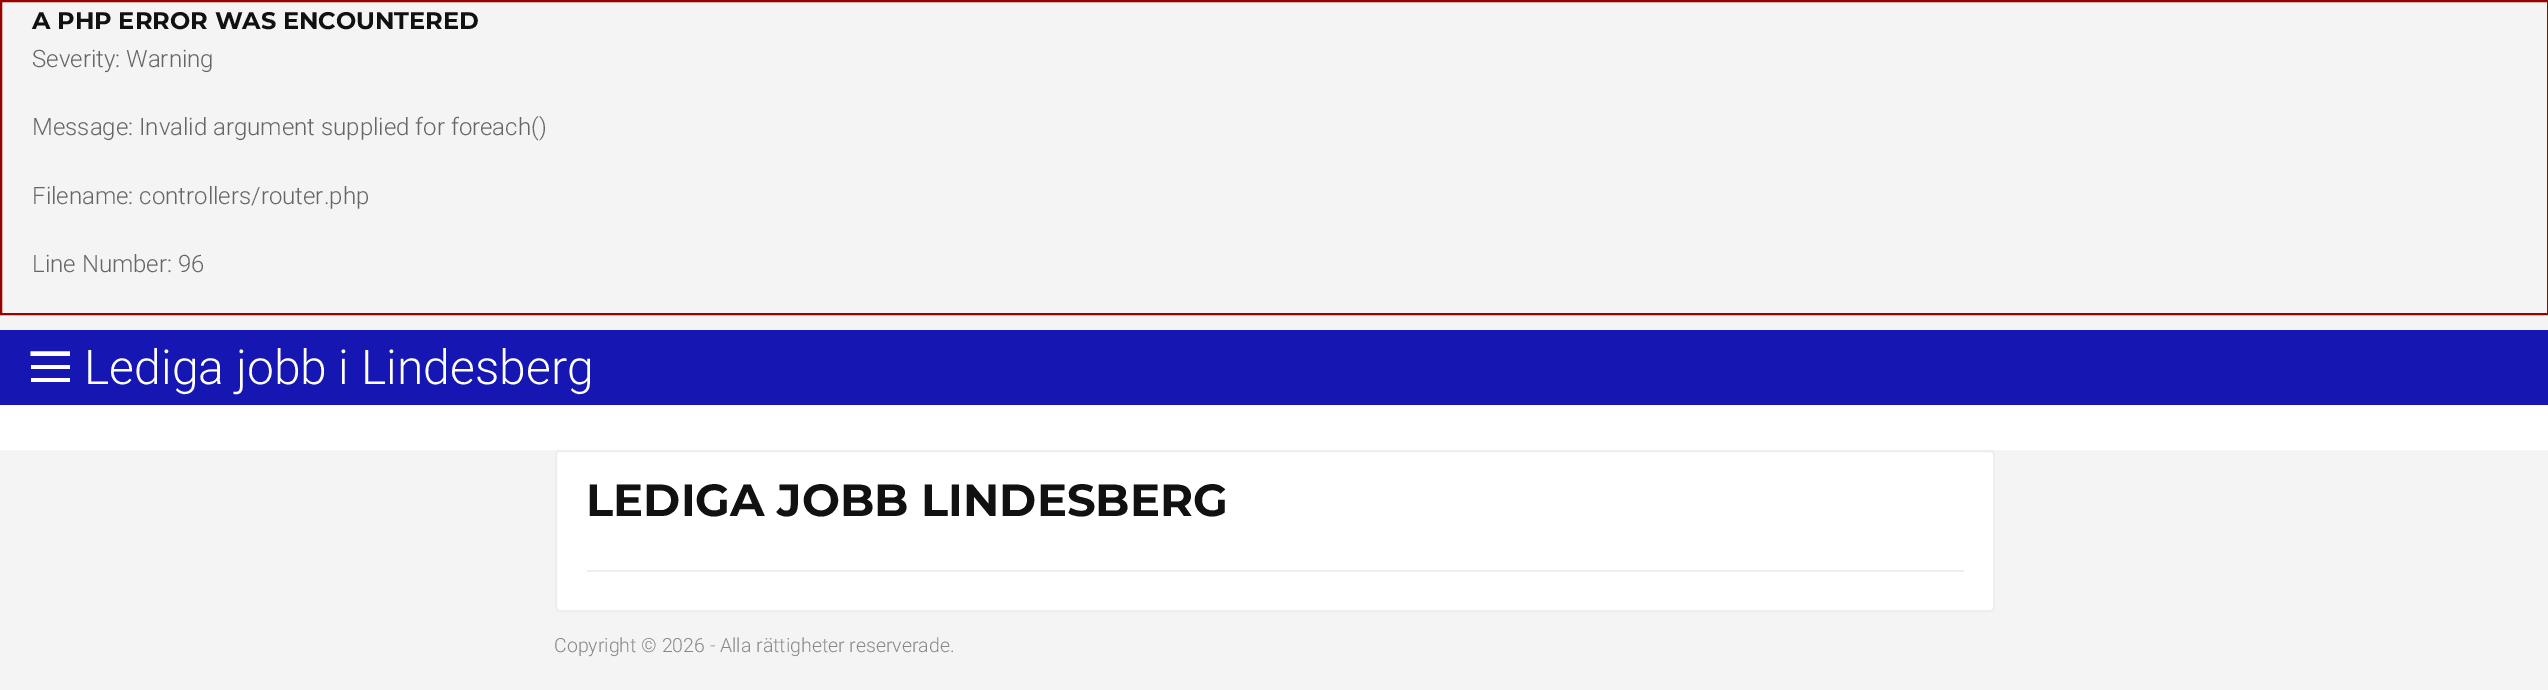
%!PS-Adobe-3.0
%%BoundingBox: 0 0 2548 690
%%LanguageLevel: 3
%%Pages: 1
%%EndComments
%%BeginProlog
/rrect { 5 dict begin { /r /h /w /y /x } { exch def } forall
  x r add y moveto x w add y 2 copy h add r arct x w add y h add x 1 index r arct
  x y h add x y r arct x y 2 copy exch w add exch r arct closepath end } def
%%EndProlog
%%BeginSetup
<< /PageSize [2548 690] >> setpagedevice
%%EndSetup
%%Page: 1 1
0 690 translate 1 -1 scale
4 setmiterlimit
0.957 setgray
0 0 2548 690 rectfill
0.6 0 0 setrgbcolor
2 setlinewidth
1 1 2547 313 rectstroke
1 setgray
0 405 2548 45 rectfill
0.086 0.086 0.698 setrgbcolor
0 330 2548 75 rectfill
1 setgray
4.4 setlinewidth
newpath 30.5 353.5 moveto 70 353.5 lineto stroke
31 365 39 4 rectfill
31 378 39 4 rectfill
556 451 1438 160 4 rrect gsave fill grestore
0.933 setgray
2 setlinewidth
stroke
587 570 1377 2 rectfill
/Montserrat-Bold [24 0 0 -24 0 0] selectfont
0.067 setgray
32 29 moveto (A PHP ERROR WAS ENCOUNTERED) show
/Roboto-Light [24 0 0 -24 0 0] selectfont
0.4 setgray
32 67 moveto (Severity: Warning) show
32 135 moveto (Message: Invalid argument supplied for foreach\(\)) show
32 204 moveto (Filename: controllers/router.php) show
32 272 moveto (Line Number: 96) show
/Roboto-Light [48 0 0 -48 0 0] selectfont
1 setgray
84 384 moveto (Lediga jobb i Lindesberg) show
/Montserrat-Bold [45 0 0 -45 0 0] selectfont
0.067 setgray
586 516 moveto (LEDIGA JOBB LINDESBERG) show
/Roboto-Light [19.5 0 0 -19.5 0 0] selectfont
0.533 setgray
554 652 moveto (Copyright © 2026 - Alla rättigheter reserverade.) show
showpage
%%EOF
